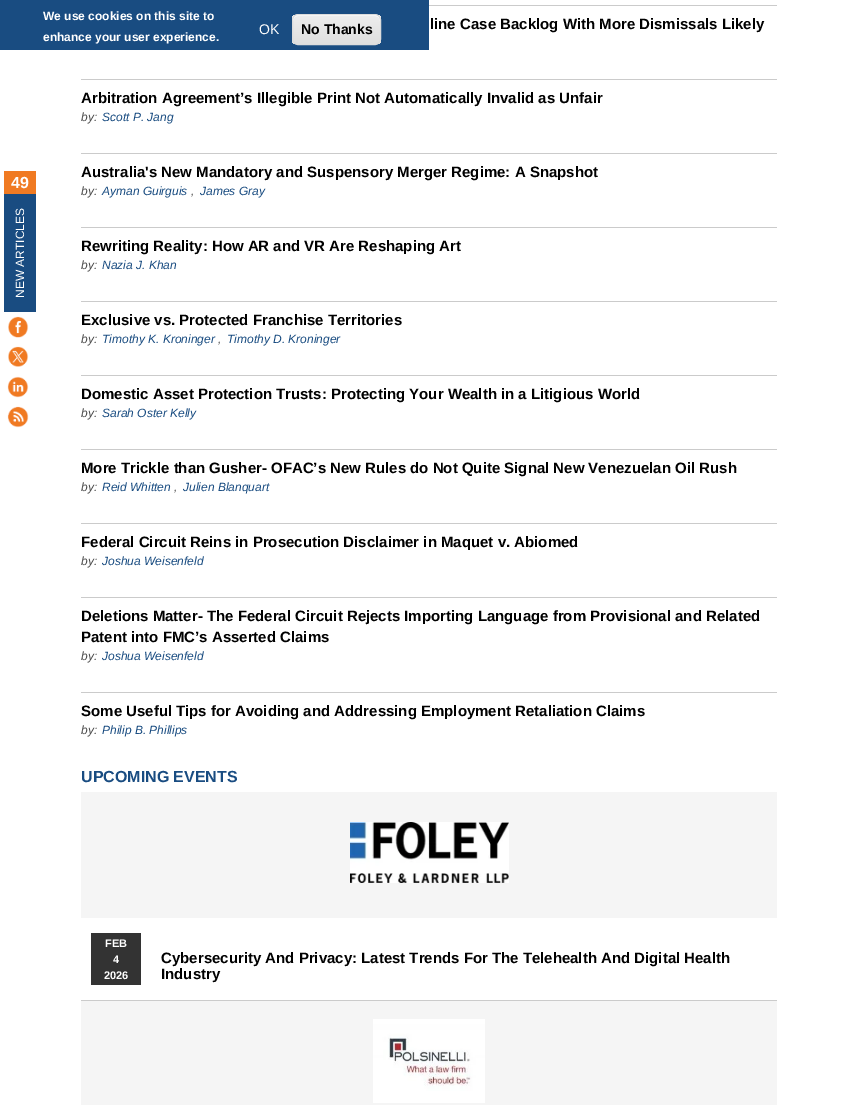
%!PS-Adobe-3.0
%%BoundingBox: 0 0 858 1105
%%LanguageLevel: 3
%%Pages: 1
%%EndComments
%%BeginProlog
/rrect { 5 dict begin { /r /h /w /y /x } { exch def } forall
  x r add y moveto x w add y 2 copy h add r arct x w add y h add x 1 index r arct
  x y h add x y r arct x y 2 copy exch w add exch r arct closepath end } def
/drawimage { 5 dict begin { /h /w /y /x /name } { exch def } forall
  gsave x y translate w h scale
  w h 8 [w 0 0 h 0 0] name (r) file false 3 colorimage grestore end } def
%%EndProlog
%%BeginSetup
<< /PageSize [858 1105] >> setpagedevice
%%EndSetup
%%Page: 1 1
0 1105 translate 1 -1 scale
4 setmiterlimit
1 setgray
0 0 858 1105 rectfill
0.098 0.298 0.506 setrgbcolor
0 0 429 50 rectfill
gsave
292 14 89 31 6 rrect clip newpath
gsave newpath 292 15 moveto 381 15 lineto 381 44 lineto 292 44 lineto closepath clip newpath
<< /ShadingType 2 /ColorSpace /DeviceRGB /Coords [337 15 337 44] /Extend [true true] /Function << /FunctionType 3 /Domain [0 1] /Functions [<< /FunctionType 2 /Domain [0 1] /C0 [0.929 0.929 0.929] /C1 [0.929 0.929 0.929] /N 1 >> << /FunctionType 2 /Domain [0 1] /C0 [0.929 0.929 0.929] /C1 [0.875 0.875 0.875] /N 1 >>] /Bounds [0.05] /Encode [0 1 0 1] >> >> shfill grestore
grestore
1 setgray
newpath 298 16 moveto 375 16 lineto 378 16 380 18 380 21 curveto 380 12 368 15 362 15 curveto 311 15 lineto 305 15 293 12 293 21 curveto 293 18 295 16 298 16 curveto closepath fill
0.863 setgray
292.5 14.5 88 30 5.5 rrect stroke
0.941 0.478 0.133 setrgbcolor
4 171 32 23 rectfill
0.098 0.298 0.506 setrgbcolor
4 194 32 118 rectfill
(images/1.raw) 8 316 21 22 drawimage
(images/2.raw) 8 346 21 21 drawimage
(images/3.raw) 7 376 22 22 drawimage
(images/4.raw) 7 406 22 22 drawimage
0.796 setgray
429 5 348 1 rectfill
81 79 696 1 rectfill
81 153 696 1 rectfill
81 227 696 1 rectfill
81 301 696 1 rectfill
81 375 696 1 rectfill
81 449 696 1 rectfill
81 523 696 1 rectfill
81 597 696 1 rectfill
81 692 696 1 rectfill
81 1000 696 1 rectfill
0.961 setgray
81 792 696 126 rectfill
(images/5.raw) 350 822 159 61 drawimage
0.2 setgray
91 933 50 52 rectfill
0.961 setgray
81 1001 696 104 rectfill
(images/6.raw) 373 1019 112 84 drawimage
/LiberationSans-Bold [12 0 0 -12 0 0] selectfont
1 setgray
43 20 moveto (We use cookies on this site to) show
43 41 moveto (enhance your user experience.) show
/LiberationSans-Regular [14 0 0 -14 0 0] selectfont
259 34 moveto (OK) show
/LiberationSans-Bold [14 0 0 -14 0 0] selectfont
0 setgray
301 34 moveto (No Thanks) show
/LiberationSans-Bold [16 0 0 -16 0 0] selectfont
1 setgray
11 188 moveto (49) show
/LiberationSans-Regular [12 0 0 -12 0 0] selectfont
gsave 24 298 translate -90 rotate 0 0 moveto (NEW ARTICLES) show grestore
/LiberationSans-Bold [15 0 0 -15 0 0] selectfont
0 setgray
430 29 moveto (line Case Backlog With More Dismissals Likely) show
81 103 moveto (Arbitration Agreement’s Illegible Print Not Automatically Invalid as Unfair) show
/LiberationSans-Italic [12 0 0 -12 0 0] selectfont
0.298 setgray
81 121 moveto (by:) show
0.098 0.298 0.506 setrgbcolor
102 121 moveto (Scott P. Jang) show
/LiberationSans-Bold [15 0 0 -15 0 0] selectfont
0 setgray
81 177 moveto (Australia's New Mandatory and Suspensory Merger Regime: A Snapshot) show
/LiberationSans-Italic [12 0 0 -12 0 0] selectfont
0.298 setgray
81 195 moveto (by:) show
0.098 0.298 0.506 setrgbcolor
102 195 moveto (Ayman Guirguis) show
0.298 setgray
191 195 moveto (,) show
0.098 0.298 0.506 setrgbcolor
200 195 moveto (James Gray) show
/LiberationSans-Bold [15 0 0 -15 0 0] selectfont
0 setgray
81 251 moveto (Rewriting Reality: How AR and VR Are Reshaping Art) show
/LiberationSans-Italic [12 0 0 -12 0 0] selectfont
0.298 setgray
81 269 moveto (by:) show
0.098 0.298 0.506 setrgbcolor
102 269 moveto (Nazia J. Khan) show
/LiberationSans-Bold [15 0 0 -15 0 0] selectfont
0 setgray
81 325 moveto (Exclusive vs. Protected Franchise Territories) show
/LiberationSans-Italic [12 0 0 -12 0 0] selectfont
0.298 setgray
81 343 moveto (by:) show
0.098 0.298 0.506 setrgbcolor
102 343 moveto (Timothy K. Kroninger) show
0.298 setgray
218 343 moveto (,) show
0.098 0.298 0.506 setrgbcolor
227 343 moveto (Timothy D. Kroninger) show
/LiberationSans-Bold [15 0 0 -15 0 0] selectfont
0 setgray
81 399 moveto (Domestic Asset Protection Trusts: Protecting Your Wealth in a Litigious World) show
/LiberationSans-Italic [12 0 0 -12 0 0] selectfont
0.298 setgray
81 417 moveto (by:) show
0.098 0.298 0.506 setrgbcolor
102 417 moveto (Sarah Oster Kelly) show
/LiberationSans-Bold [15 0 0 -15 0 0] selectfont
0 setgray
81 473 moveto (More Trickle than Gusher- OFAC’s New Rules do Not Quite Signal New Venezuelan Oil Rush) show
/LiberationSans-Italic [12 0 0 -12 0 0] selectfont
0.298 setgray
81 491 moveto (by:) show
0.098 0.298 0.506 setrgbcolor
102 491 moveto (Reid Whitten) show
0.298 setgray
174 491 moveto (,) show
0.098 0.298 0.506 setrgbcolor
183 491 moveto (Julien Blanquart) show
/LiberationSans-Bold [15 0 0 -15 0 0] selectfont
0 setgray
81 547 moveto (Federal Circuit Reins in Prosecution Disclaimer in Maquet v. Abiomed) show
/LiberationSans-Italic [12 0 0 -12 0 0] selectfont
0.298 setgray
81 565 moveto (by:) show
0.098 0.298 0.506 setrgbcolor
102 565 moveto (Joshua Weisenfeld) show
/LiberationSans-Bold [15 0 0 -15 0 0] selectfont
0 setgray
81 621 moveto (Deletions Matter- The Federal Circuit Rejects Importing Language from Provisional and Related) show
81 642 moveto (Patent into FMC’s Asserted Claims) show
/LiberationSans-Italic [12 0 0 -12 0 0] selectfont
0.298 setgray
81 660 moveto (by:) show
0.098 0.298 0.506 setrgbcolor
102 660 moveto (Joshua Weisenfeld) show
/LiberationSans-Bold [15 0 0 -15 0 0] selectfont
0 setgray
81 716 moveto (Some Useful Tips for Avoiding and Addressing Employment Retaliation Claims) show
/LiberationSans-Italic [12 0 0 -12 0 0] selectfont
0.298 setgray
81 734 moveto (by:) show
0.098 0.298 0.506 setrgbcolor
102 734 moveto (Philip B. Phillips) show
/LiberationSans-Bold [16 0 0 -16 0 0] selectfont
81 782 moveto (UPCOMING EVENTS) show
/LiberationSans-Bold [11 0 0 -11 0 0] selectfont
1 setgray
105 947 moveto (FEB) show
113 963 moveto (4) show
104 979 moveto (2026) show
/LiberationSans-Bold [15 0 0 -15 0 0] selectfont
0 setgray
161 963 moveto (Cybersecurity And Privacy: Latest Trends For The Telehealth And Digital Health) show
161 979 moveto (Industry) show
showpage
%%EOF
